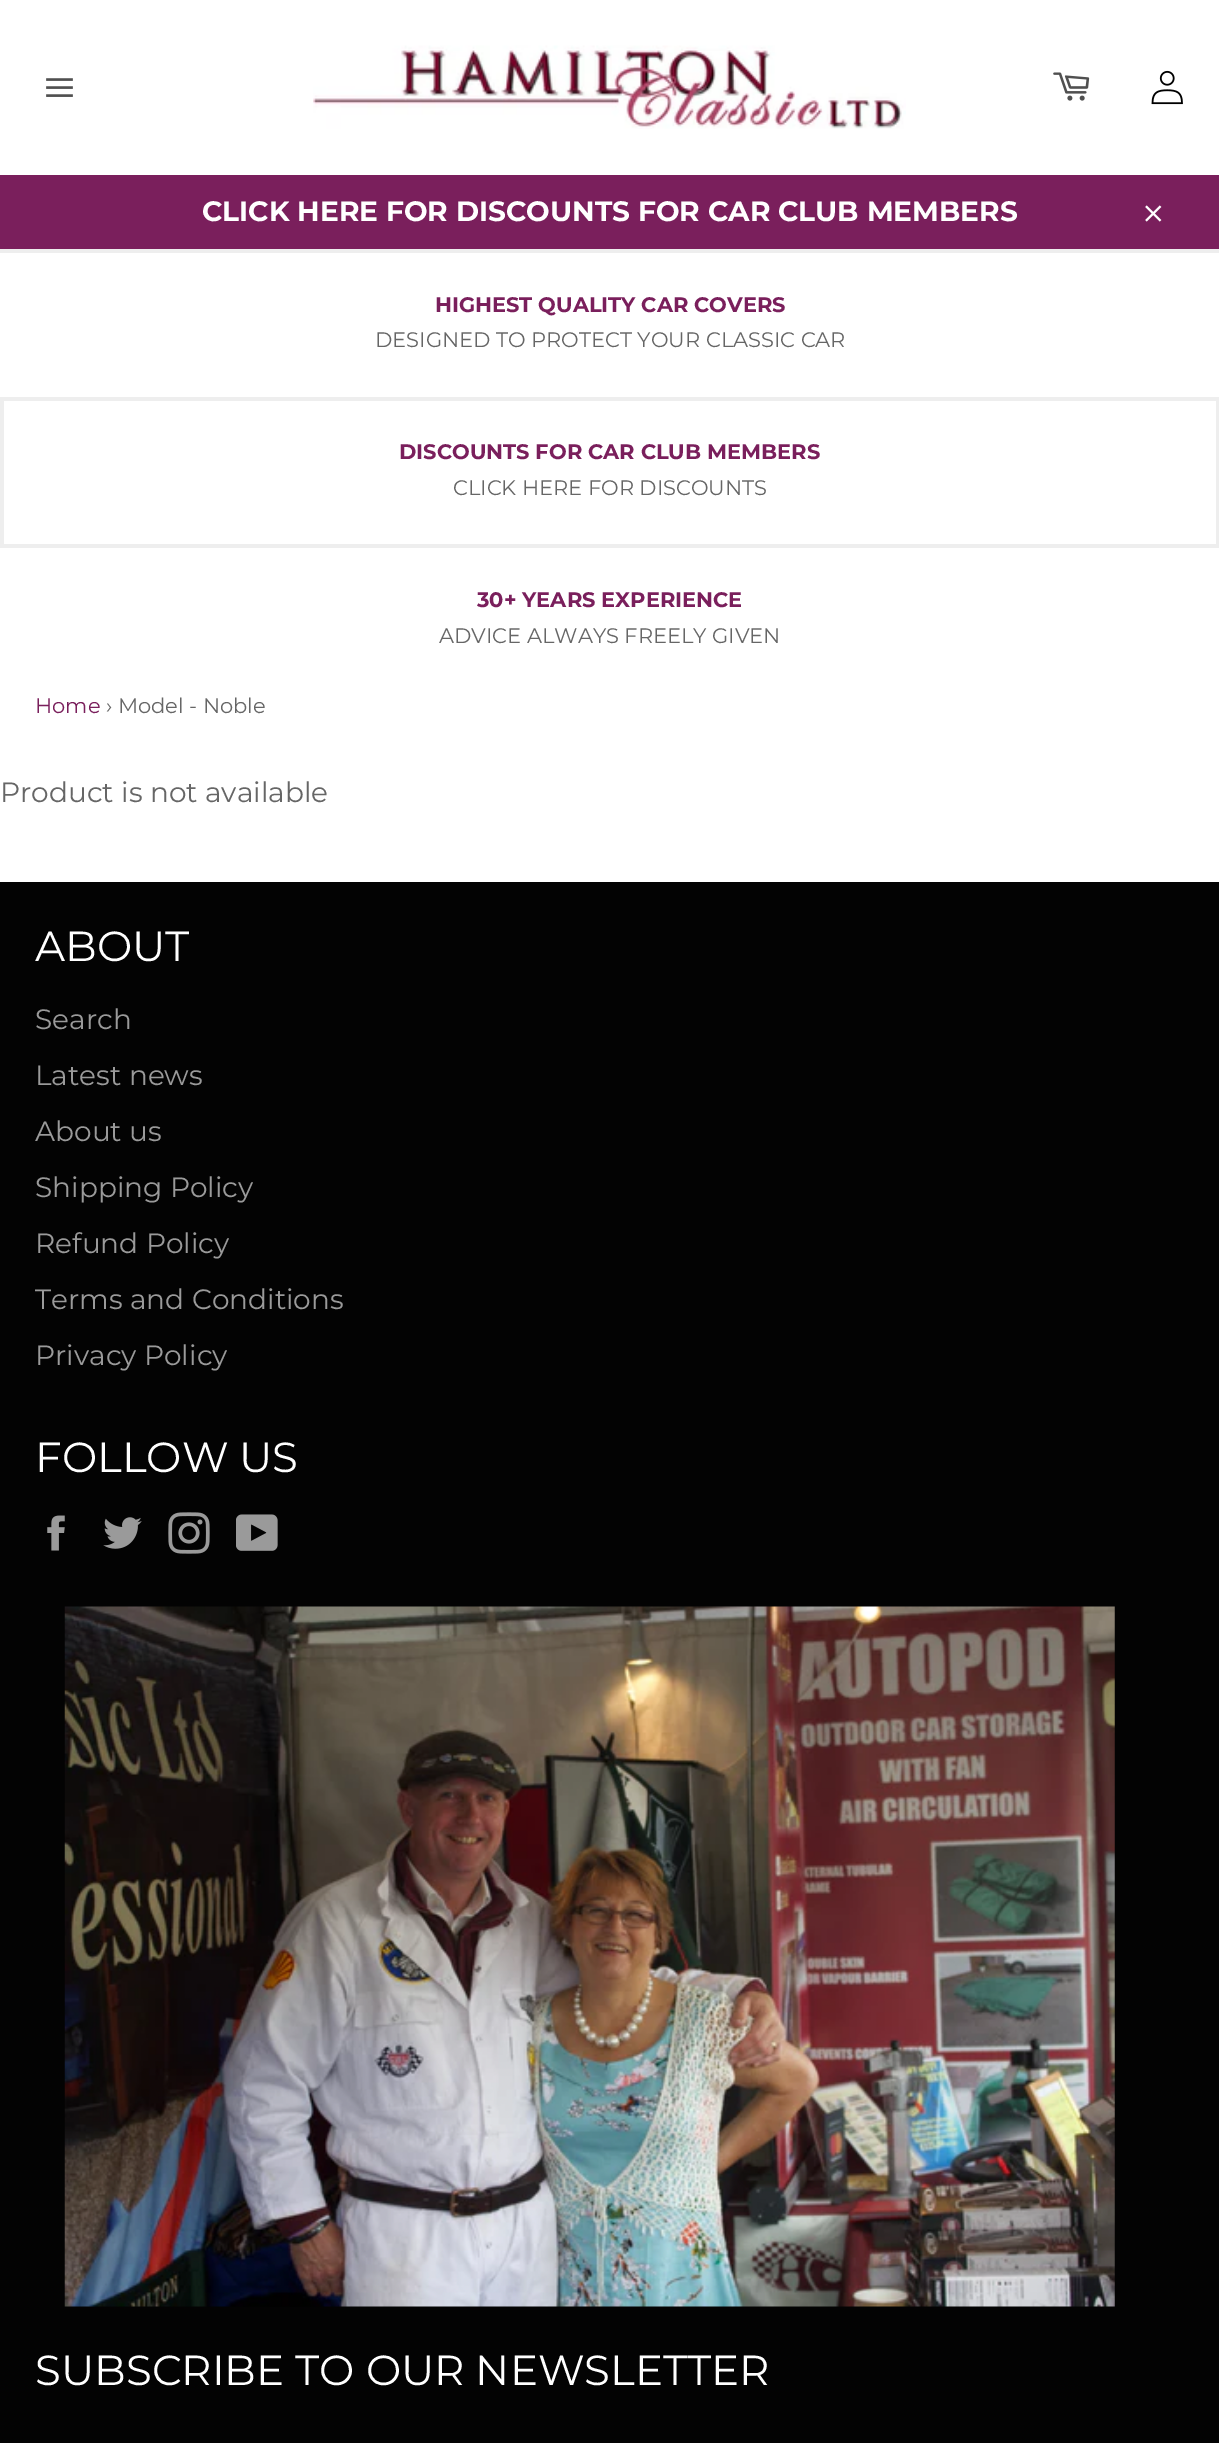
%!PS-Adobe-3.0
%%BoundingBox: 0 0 1219 2443
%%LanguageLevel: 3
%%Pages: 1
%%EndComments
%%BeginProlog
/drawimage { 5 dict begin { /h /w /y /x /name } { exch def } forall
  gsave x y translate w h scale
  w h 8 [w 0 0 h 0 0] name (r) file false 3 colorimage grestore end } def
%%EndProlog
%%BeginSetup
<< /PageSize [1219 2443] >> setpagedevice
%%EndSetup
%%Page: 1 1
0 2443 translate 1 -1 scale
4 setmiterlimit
1 setgray
0 0 1219 2443 rectfill
(images/1.raw) 46 78 27 19 drawimage
(images/2.raw) 313 45 593 84 drawimage
(images/3.raw) 1053 72 37 29 drawimage
(images/4.raw) 1151 70 32 35 drawimage
0.478 0.122 0.361 setrgbcolor
0 175 1219 74 rectfill
(images/5.raw) 1145 205 17 17 drawimage
0.933 setgray
0 249 1219 4 rectfill
0 397 1219 4 rectfill
1216 397 3 147 rectfill
0 397 4 147 rectfill
0 544 1219 4 rectfill
0.012 setgray
0 882 1219 1561 rectfill
(images/6.raw) 47 1515 18 36 drawimage
(images/7.raw) 103 1517 39 32 drawimage
(images/8.raw) 168 1512 42 42 drawimage
(images/9.raw) 236 1514 42 37 drawimage
(images/10.raw) 64 1606 1051 701 drawimage
/Montserrat-Bold [28 0 0 -28 0 0] selectfont
1 setgray
202 221 moveto (CLICK HERE FOR DISCOUNTS FOR CAR CLUB MEMBERS) show
/Montserrat-Bold [21 0 0 -21 0 0] selectfont
0.478 0.122 0.361 setrgbcolor
435 312 moveto (HIGHEST QUALITY CAR COVERS) show
/Montserrat-Regular [21 0 0 -21 0 0] selectfont
0.4 setgray
375 347 moveto (DESIGNED TO PROTECT YOUR CLASSIC CAR) show
/Montserrat-Bold [21 0 0 -21 0 0] selectfont
0.478 0.122 0.361 setrgbcolor
399 459 moveto (DISCOUNTS FOR CAR CLUB MEMBERS) show
/Montserrat-Regular [21 0 0 -21 0 0] selectfont
0.4 setgray
453 495 moveto (CLICK HERE FOR DISCOUNTS) show
/Montserrat-Bold [21 0 0 -21 0 0] selectfont
0.478 0.122 0.361 setrgbcolor
477 607 moveto (30+ YEARS EXPERIENCE) show
/Montserrat-Regular [21 0 0 -21 0 0] selectfont
0.4 setgray
439 643 moveto (ADVICE ALWAYS FREELY GIVEN) show
0.478 0.122 0.361 setrgbcolor
35 713 moveto (Home) show
0.4 setgray
106 713 moveto (› Model - Noble) show
/Montserrat-Regular [28 0 0 -28 0 0] selectfont
0 802 moveto (Product is not available) show
/Montserrat-Regular [42 0 0 -42 0 0] selectfont
1 setgray
35 961 moveto (ABOUT) show
/Montserrat-Regular [28 0 0 -28 0 0] selectfont
0.604 setgray
35 1029 moveto (Search) show
35 1085 moveto (Latest news) show
35 1141 moveto (About us) show
35 1197 moveto (Shipping Policy) show
35 1253 moveto (Refund Policy) show
35 1309 moveto (Terms and Conditions) show
35 1365 moveto (Privacy Policy) show
/Montserrat-Regular [42 0 0 -42 0 0] selectfont
1 setgray
35 1472 moveto (FOLLOW US) show
35 2385 moveto (SUBSCRIBE TO OUR NEWSLETTER) show
showpage
%%EOF
